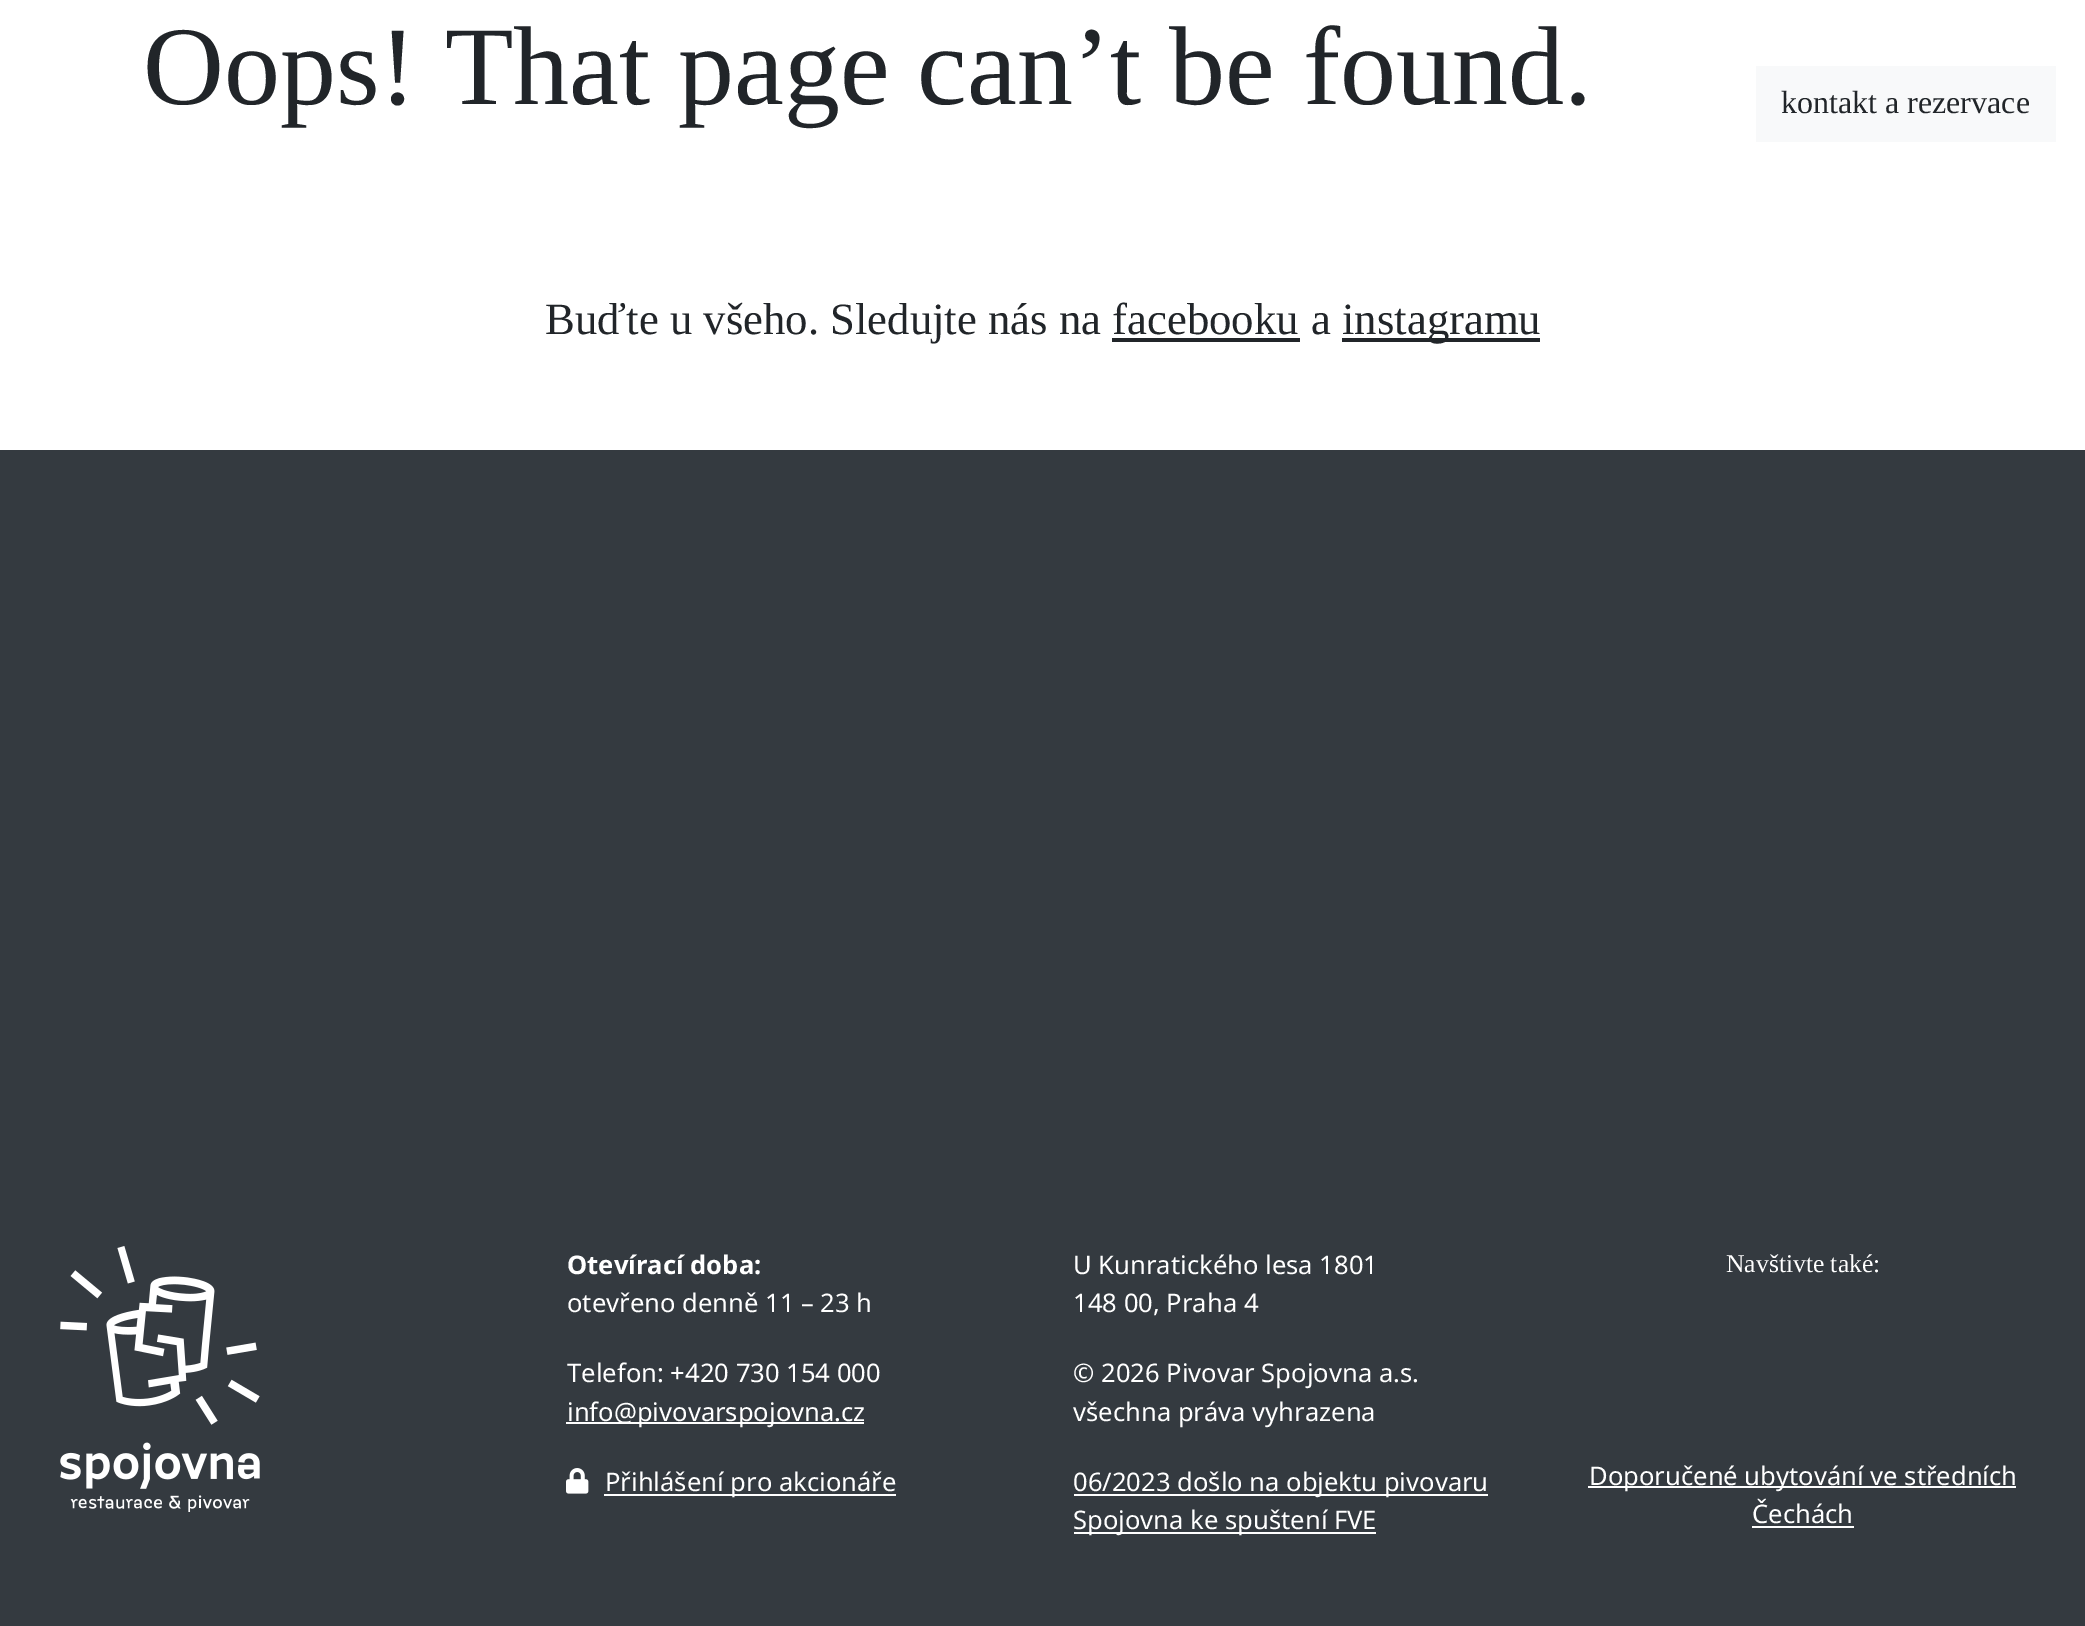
%!PS-Adobe-3.0
%%BoundingBox: 0 0 2085 1626
%%LanguageLevel: 3
%%Pages: 1
%%EndComments
%%BeginProlog
/drawimage { 5 dict begin { /h /w /y /x /name } { exch def } forall
  gsave x y translate w h scale
  w h 8 [w 0 0 h 0 0] name (r) file false 3 colorimage grestore end } def
%%EndProlog
%%BeginSetup
<< /PageSize [2085 1626] >> setpagedevice
%%EndSetup
%%Page: 1 1
0 1626 translate 1 -1 scale
4 setmiterlimit
1 setgray
0 0 2085 1626 rectfill
0.973 0.976 0.98 setrgbcolor
1756 66 300 76 rectfill
0.129 0.145 0.161 setrgbcolor
1342 338 198 4 rectfill
1112 338 188 4 rectfill
0.204 0.227 0.251 setrgbcolor
0 450 2085 1176 rectfill
(images/1.raw) 60 1246 200 266 drawimage
1 setgray
566 1422 298 2 rectfill
(images/2.raw) 566 1468 23 26 drawimage
604 1494 292 2 rectfill
1074 1494 414 2 rectfill
1074 1532 302 2 rectfill
1588 1486 428 2 rectfill
1752 1526 102 2 rectfill
/LiberationSerif-Regular [112 0 0 -112 0 0] selectfont
0.129 0.145 0.161 setrgbcolor
143 104 moveto (Oops! That page can’t be found.) show
/LiberationSerif-Regular [32 0 0 -32 0 0] selectfont
1781 113 moveto (kontakt a rezervace) show
/LiberationSerif-Regular [44.75 0 0 -44.75 0 0] selectfont
545 334 moveto (Buďte u všeho. Sledujte nás na facebooku) show
1311 334 moveto (a) show
1342 334 moveto (instagramu) show
/NotoSans-Bold [25.6 0 0 -25.6 0 0] selectfont
1 setgray
567 1274 moveto (Otevírací doba:) show
/NotoSans-Regular [25.6 0 0 -25.6 0 0] selectfont
567 1312 moveto (otevřeno denně 11 – 23 h) show
567 1382 moveto (Telefon: +420 730 154 000) show
567 1421 moveto (info@pivovarspojovna.cz) show
605 1491 moveto (Přihlášení pro akcionáře) show
1073 1274 moveto (U Kunratického lesa 1801) show
1073 1312 moveto (148 00, Praha 4) show
1073 1382 moveto (© 2026 Pivovar Spojovna a.s.) show
1073 1421 moveto (všechna práva vyhrazena) show
1073 1491 moveto (06/2023 došlo na objektu pivovaru) show
1073 1529 moveto (Spojovna ke spuštení FVE) show
/LiberationSerif-Regular [25.6 0 0 -25.6 0 0] selectfont
1726 1272 moveto (Navštivte také:) show
/NotoSans-Regular [25.6 0 0 -25.6 0 0] selectfont
1589 1485 moveto (Doporučené ubytování ve středních) show
1752 1523 moveto (Čechách) show
showpage
%%EOF
